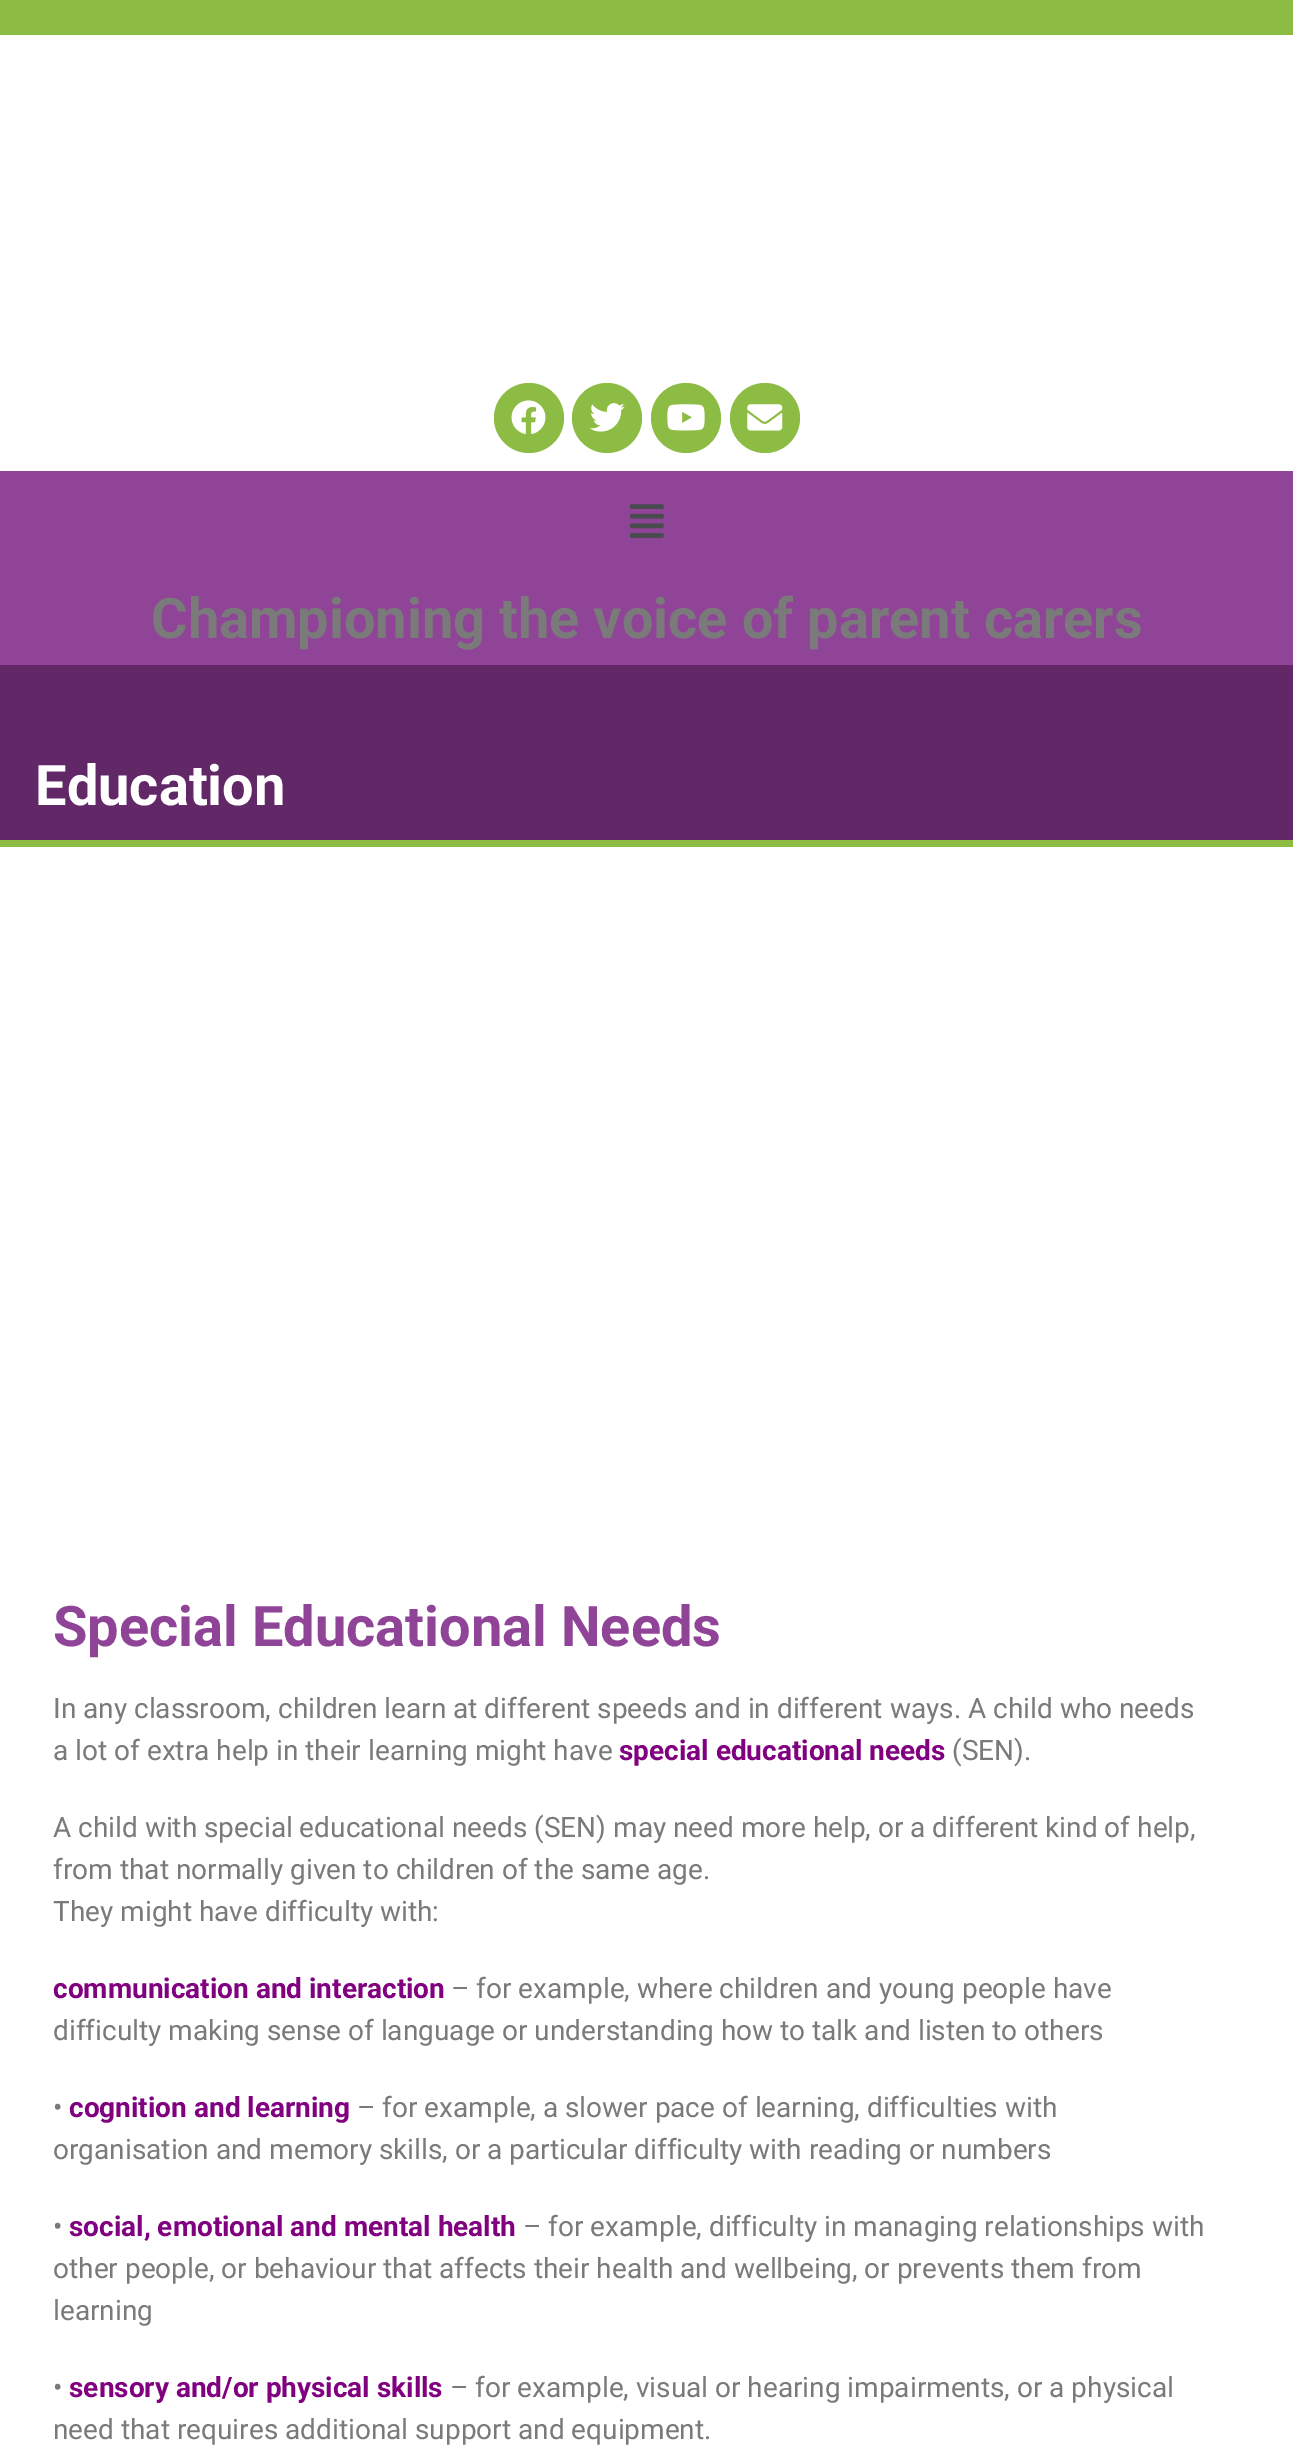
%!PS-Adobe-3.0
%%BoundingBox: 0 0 1293 2445
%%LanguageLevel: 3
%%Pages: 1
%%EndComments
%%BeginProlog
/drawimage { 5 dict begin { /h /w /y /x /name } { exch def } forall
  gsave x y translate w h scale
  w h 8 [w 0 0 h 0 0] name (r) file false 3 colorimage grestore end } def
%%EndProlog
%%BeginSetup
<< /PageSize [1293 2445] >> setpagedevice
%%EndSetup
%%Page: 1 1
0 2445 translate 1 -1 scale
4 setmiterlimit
1 setgray
0 0 1293 2445 rectfill
0.553 0.737 0.267 setrgbcolor
0 0 1293 35 rectfill
newpath 529 418 35 0 360 arc closepath fill
(images/1.raw) 511 400 35 35 drawimage
newpath 607 418 35 0 360 arc closepath fill
(images/2.raw) 590 403 35 29 drawimage
newpath 686 418 35 0 360 arc closepath fill
(images/3.raw) 667 404 38 27 drawimage
newpath 765 418 35 0 360 arc closepath fill
(images/4.raw) 747 404 36 27 drawimage
0.565 0.267 0.596 setrgbcolor
0 471 1293 194 rectfill
(images/5.raw) 630 504 34 34 drawimage
0.38 0.153 0.404 setrgbcolor
0 665 1293 175 rectfill
0.553 0.737 0.267 setrgbcolor
0 840 1293 7 rectfill
/Roboto-Bold [56 0 0 -56 0 0] selectfont
0.478 setgray
151 638 moveto (Championing the voice of parent carers) show
1 setgray
35 805 moveto (Education) show
0.565 0.267 0.596 setrgbcolor
53 1646 moveto (Special Educational Needs) show
/Roboto-Regular [28 0 0 -28 0 0] selectfont
0.478 setgray
53 1718 moveto (In any classroom, children learn at different speeds and in different ways. A child who needs) show
53 1760 moveto (a lot of extra help in their learning might have) show
/Roboto-Bold [28 0 0 -28 0 0] selectfont
0.502 0 0.502 setrgbcolor
619 1760 moveto (special educational needs) show
/Roboto-Regular [28 0 0 -28 0 0] selectfont
0.478 setgray
952 1760 moveto (\(SEN\).) show
53 1837 moveto (A child with special educational needs \(SEN\) may need more help, or a different kind of help,) show
53 1879 moveto (from that normally given to children of the same age.) show
53 1921 moveto (They might have difficulty with:) show
/Roboto-Bold [28 0 0 -28 0 0] selectfont
0.502 0 0.502 setrgbcolor
53 1998 moveto (communication and interaction) show
/Roboto-Regular [28 0 0 -28 0 0] selectfont
0.478 setgray
451 1998 moveto (– for example, where children and young people have) show
53 2040 moveto (difficulty making sense of language or understanding how to talk and listen to others) show
53 2117 moveto (•) show
/Roboto-Bold [28 0 0 -28 0 0] selectfont
0.502 0 0.502 setrgbcolor
69 2117 moveto (cognition and learning) show
/Roboto-Regular [28 0 0 -28 0 0] selectfont
0.478 setgray
357 2117 moveto (– for example, a slower pace of learning, difficulties with) show
53 2159 moveto (organisation and memory skills, or a particular difficulty with reading or numbers) show
53 2236 moveto (•) show
/Roboto-Bold [28 0 0 -28 0 0] selectfont
0.502 0 0.502 setrgbcolor
69 2236 moveto (social, emotional and mental health) show
/Roboto-Regular [28 0 0 -28 0 0] selectfont
0.478 setgray
523 2236 moveto (– for example, difficulty in managing relationships with) show
53 2278 moveto (other people, or behaviour that affects their health and wellbeing, or prevents them from) show
53 2320 moveto (learning) show
53 2397 moveto (•) show
/Roboto-Bold [28 0 0 -28 0 0] selectfont
0.502 0 0.502 setrgbcolor
69 2397 moveto (sensory and/or physical skills) show
/Roboto-Regular [28 0 0 -28 0 0] selectfont
0.478 setgray
450 2397 moveto (– for example, visual or hearing impairments, or a physical) show
53 2439 moveto (need that requires additional support and equipment.) show
showpage
%%EOF
